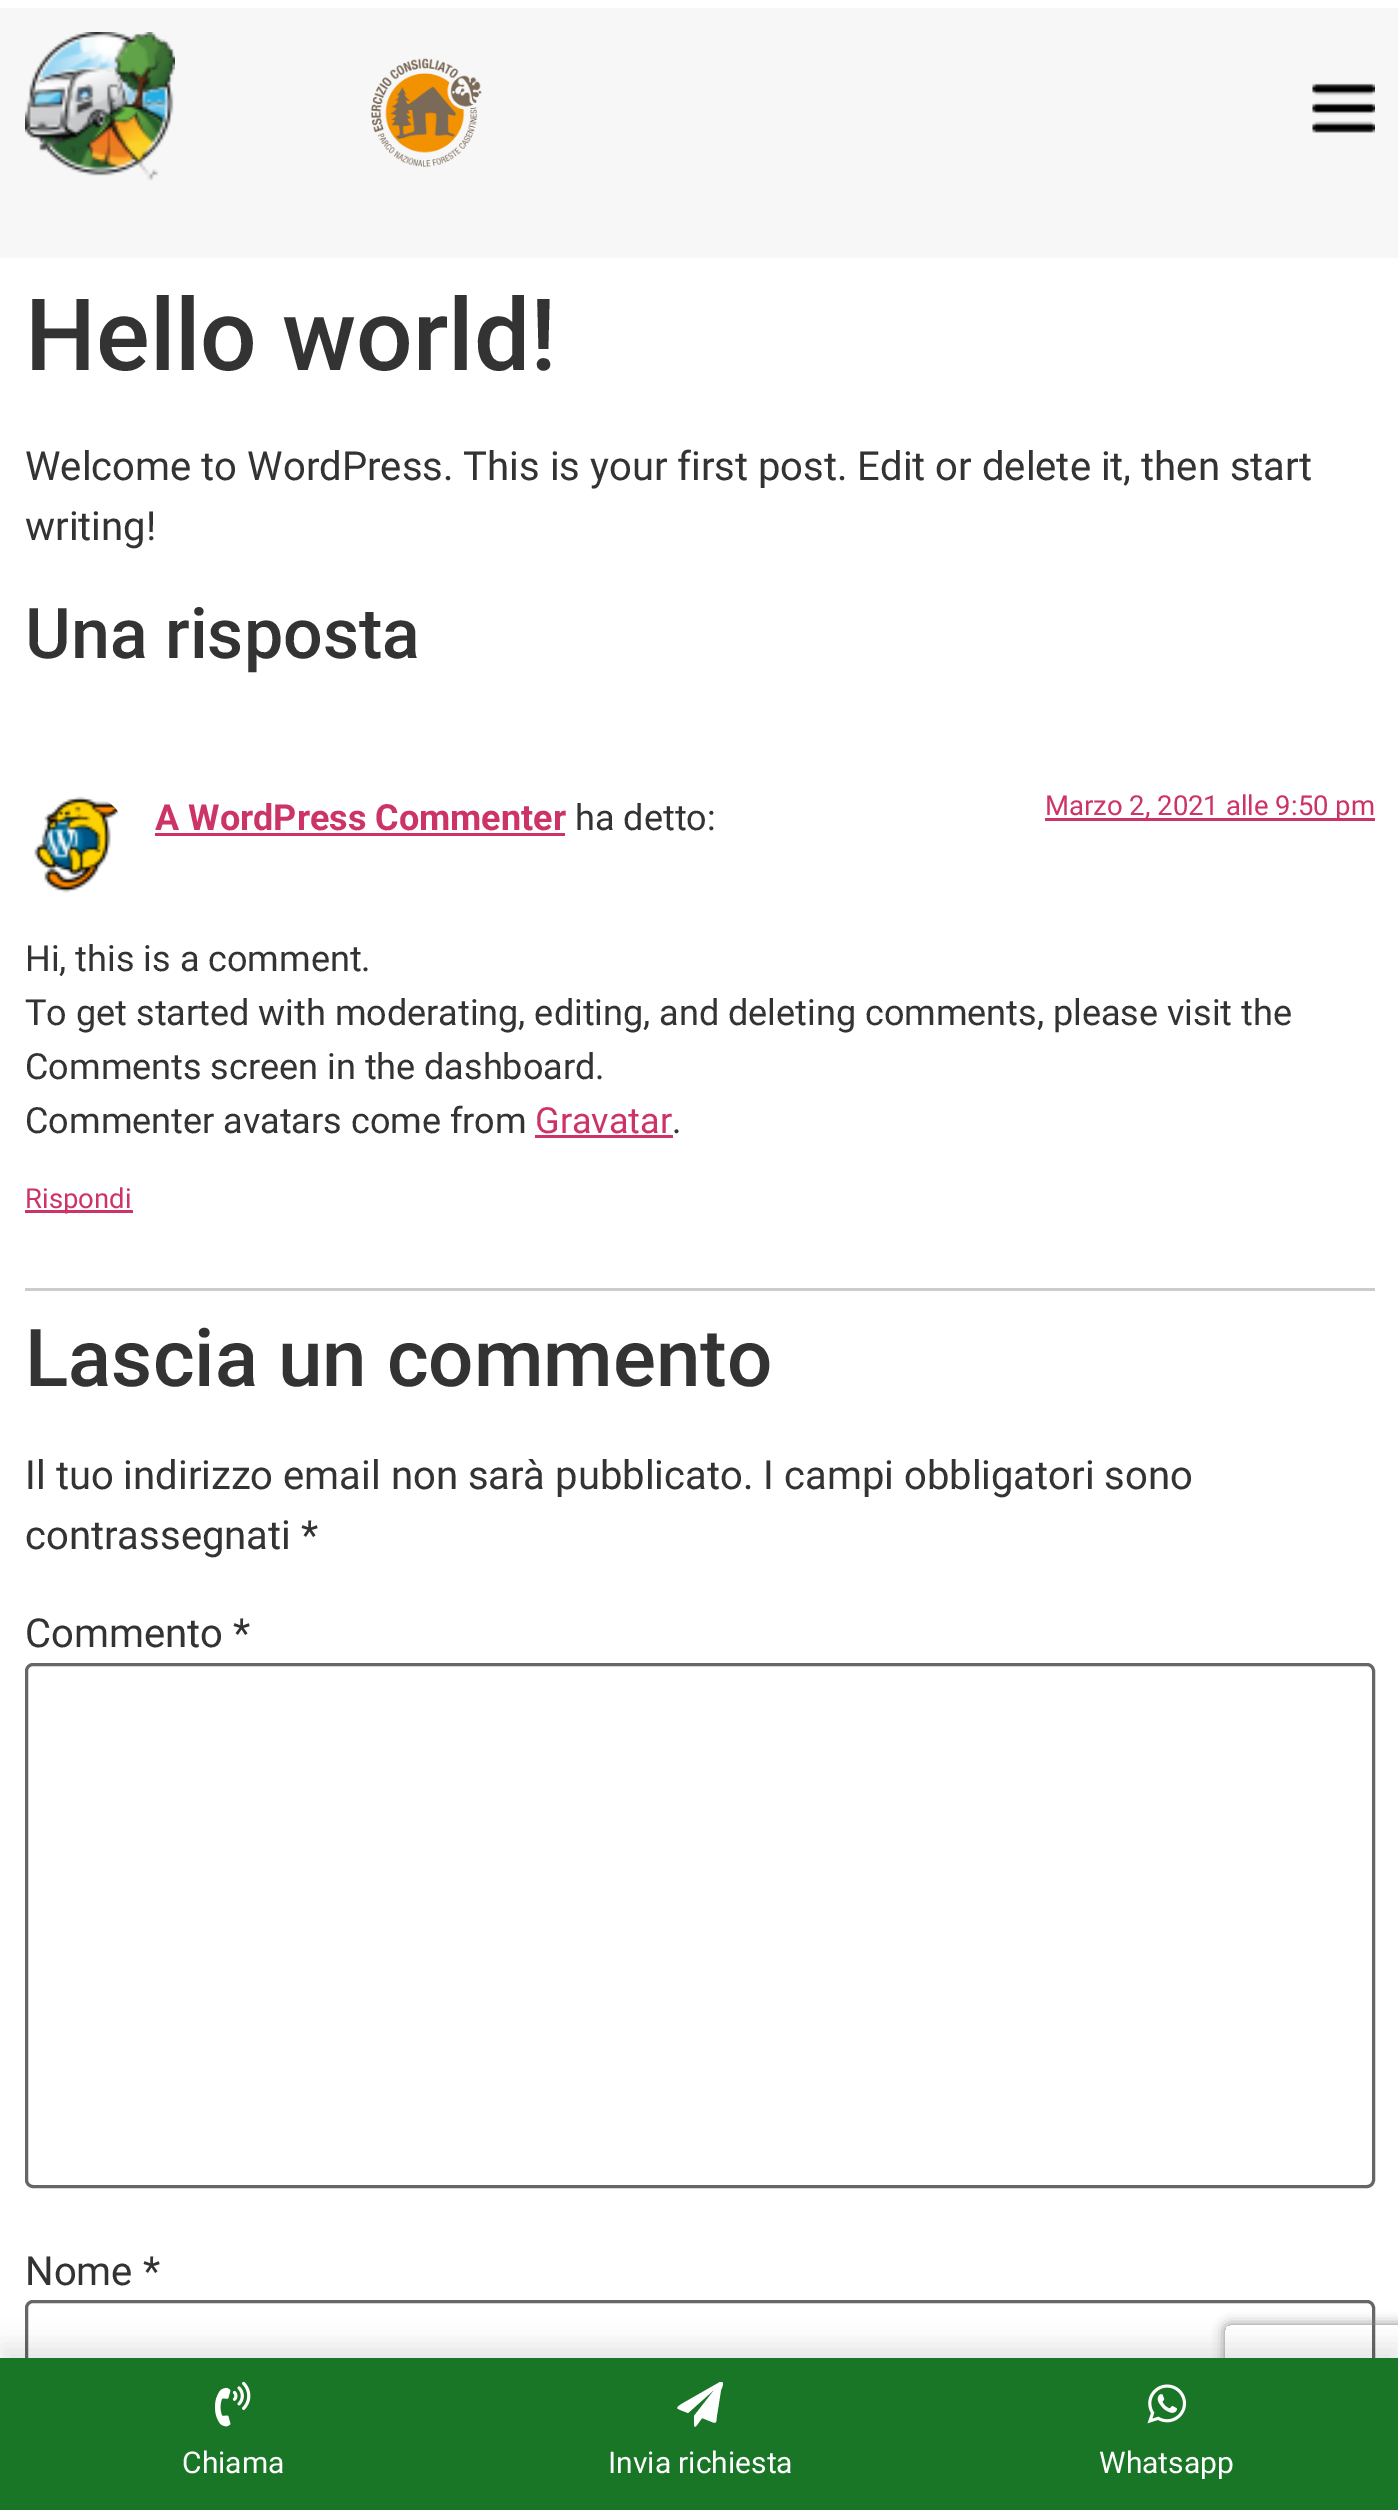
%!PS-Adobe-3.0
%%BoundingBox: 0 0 1398 2510
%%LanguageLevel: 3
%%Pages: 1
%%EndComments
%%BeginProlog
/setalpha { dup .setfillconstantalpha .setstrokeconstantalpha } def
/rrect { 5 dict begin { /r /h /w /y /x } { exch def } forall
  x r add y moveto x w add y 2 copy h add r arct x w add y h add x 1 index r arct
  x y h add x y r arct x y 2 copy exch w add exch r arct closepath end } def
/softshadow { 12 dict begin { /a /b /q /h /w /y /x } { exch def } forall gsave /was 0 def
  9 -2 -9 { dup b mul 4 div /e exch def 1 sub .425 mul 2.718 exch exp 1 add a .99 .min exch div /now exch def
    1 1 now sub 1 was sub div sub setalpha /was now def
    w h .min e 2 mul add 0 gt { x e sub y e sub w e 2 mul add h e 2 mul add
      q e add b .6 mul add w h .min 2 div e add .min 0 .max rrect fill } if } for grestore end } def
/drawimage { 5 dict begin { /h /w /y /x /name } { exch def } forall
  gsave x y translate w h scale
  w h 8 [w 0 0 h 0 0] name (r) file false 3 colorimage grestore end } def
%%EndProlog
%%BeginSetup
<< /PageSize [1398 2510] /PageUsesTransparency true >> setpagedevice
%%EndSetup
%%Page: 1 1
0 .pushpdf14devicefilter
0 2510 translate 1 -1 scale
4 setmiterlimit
1 setgray
0 0 1398 2510 rectfill
0.969 setgray
0 8 1398 250 rectfill
(images/1.raw) 25 32 150 149 drawimage
(images/2.raw) 371 58 111 109 drawimage
(images/3.raw) 1312 83 63 50 drawimage
0.8 setgray
25 1288 1350 3 rectfill
(images/4.raw) 34 796 85 97 drawimage
0.8 0.2 0.4 setrgbcolor
155 833 410 3 rectfill
1045 818 330 3 rectfill
535 1135 138 3 rectfill
25 1210 108 3 rectfill
0.4 setgray
3 setlinewidth
26.5 1664.5 1347 522 6.5 rrect stroke
26.5 2301.5 1347 102 6.5 rrect stroke
0 setgray
0 2345 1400 153 0 12.5 0.1 softshadow
gsave
newpath 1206 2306 moveto 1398 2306 lineto 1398 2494 lineto 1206 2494 lineto closepath 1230 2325 moveto 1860 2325 lineto 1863 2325 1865 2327 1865 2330 curveto 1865 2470 lineto 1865 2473 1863 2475 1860 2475 curveto 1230 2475 lineto 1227 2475 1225 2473 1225 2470 curveto 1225 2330 lineto 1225 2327 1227 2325 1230 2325 curveto closepath eoclip newpath
0.502 setgray
1225 2325 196 150 5 6 1 softshadow
grestore
0.098 0.463 0.149 setrgbcolor
0 2358 1398 152 rectfill
(images/5.raw) 215 2381 36 46 drawimage
1 setgray
newpath 722 2382 moveto 720 2382 lineto 685 2402 lineto 673 2409 676 2408 688 2413 curveto 715 2389 lineto 694 2416 lineto 694 2431 694 2429 702 2418 curveto 712 2422 lineto 717 2424 716 2422 717 2415 curveto 721 2390 lineto 722 2388 724 2383 722 2382 curveto closepath fill
(images/6.raw) 1147 2384 40 40 drawimage
/Roboto-Medium [100 0 0 -100 0 0] selectfont
0.2 setgray
25 370 moveto (Hello world!) show
/Roboto-Regular [40 0 0 -40 0 0] selectfont
25 480 moveto (Welcome to WordPress. This is your first post. Edit or delete it, then start) show
25 540 moveto (writing!) show
/Roboto-Medium [70 0 0 -70 0 0] selectfont
25 658 moveto (Una risposta) show
/Roboto-Bold [36 0 0 -36 0 0] selectfont
0.8 0.2 0.4 setrgbcolor
155 830 moveto (A WordPress Commenter) show
/Roboto-Regular [36 0 0 -36 0 0] selectfont
0.2 setgray
575 830 moveto (ha detto:) show
/Roboto-Regular [27.5 0 0 -27.5 0 0] selectfont
0.8 0.2 0.4 setrgbcolor
1045 815 moveto (Marzo 2, 2021 alle 9:50 pm) show
/Roboto-Regular [36 0 0 -36 0 0] selectfont
0.2 setgray
25 971 moveto (Hi, this is a comment.) show
25 1025 moveto (To get started with moderating, editing, and deleting comments, please visit the) show
25 1079 moveto (Comments screen in the dashboard.) show
25 1133 moveto (Commenter avatars come from) show
0.8 0.2 0.4 setrgbcolor
535 1133 moveto (Gravatar) show
0.2 setgray
672 1133 moveto (.) show
/Roboto-Regular [27.5 0 0 -27.5 0 0] selectfont
0.8 0.2 0.4 setrgbcolor
25 1208 moveto (Rispondi) show
/Roboto-Medium [80 0 0 -80 0 0] selectfont
0.2 setgray
25 1386 moveto (Lascia un commento) show
/Roboto-Regular [40 0 0 -40 0 0] selectfont
25 1489 moveto (Il tuo indirizzo email non sarà pubblicato. I campi obbligatori sono) show
25 1549 moveto (contrassegnati *) show
25 1647 moveto (Commento *) show
25 2285 moveto (Nome *) show
/Roboto-Regular [30 0 0 -30 0 0] selectfont
1 setgray
182 2473 moveto (Chiama) show
608 2473 moveto (Invia richiesta) show
1099 2473 moveto (Whatsapp) show
.poppdf14devicefilter showpage
%%EOF
